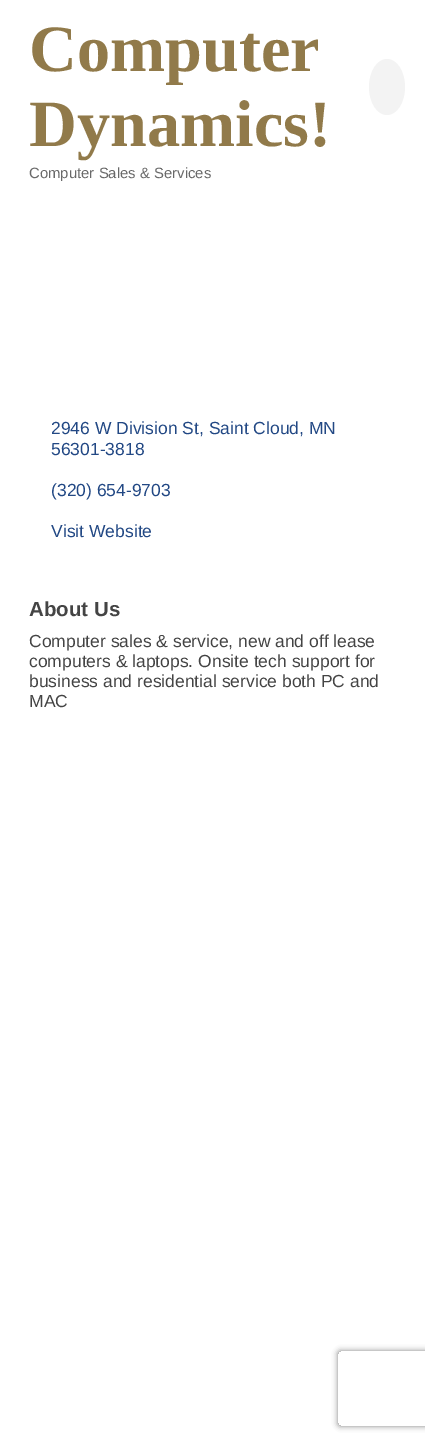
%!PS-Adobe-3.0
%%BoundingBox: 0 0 425 1443
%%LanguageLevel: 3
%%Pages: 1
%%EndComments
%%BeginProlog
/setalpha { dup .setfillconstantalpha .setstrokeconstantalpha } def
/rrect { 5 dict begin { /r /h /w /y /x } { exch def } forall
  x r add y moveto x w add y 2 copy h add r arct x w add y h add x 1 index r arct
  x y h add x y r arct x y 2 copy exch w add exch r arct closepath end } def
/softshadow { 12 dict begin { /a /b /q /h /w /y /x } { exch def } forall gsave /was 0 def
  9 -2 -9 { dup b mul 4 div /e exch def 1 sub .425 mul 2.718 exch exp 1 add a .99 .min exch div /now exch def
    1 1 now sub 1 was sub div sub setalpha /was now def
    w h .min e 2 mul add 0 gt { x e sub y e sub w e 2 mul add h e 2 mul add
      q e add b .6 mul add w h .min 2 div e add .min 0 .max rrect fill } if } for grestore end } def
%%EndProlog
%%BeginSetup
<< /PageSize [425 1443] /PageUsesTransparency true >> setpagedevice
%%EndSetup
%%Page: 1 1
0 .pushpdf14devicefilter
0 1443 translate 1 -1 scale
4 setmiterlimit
1 setgray
0 0 425 1443 rectfill
0.953 setgray
newpath 387 59 moveto 397 59 405 71.5 405 87 curveto 405 102.5 397 115 387 115 curveto 377 115 369 102.5 369 87 curveto 369 71.5 377 59 387 59 curveto closepath fill
gsave
newpath 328 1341 moveto 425 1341 lineto 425 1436 lineto 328 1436 lineto closepath 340.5 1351 moveto 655.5 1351 lineto 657 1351 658 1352 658 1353.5 curveto 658 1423.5 lineto 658 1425 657 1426 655.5 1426 curveto 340.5 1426 lineto 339 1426 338 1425 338 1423.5 curveto 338 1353.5 lineto 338 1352 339 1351 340.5 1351 curveto closepath eoclip newpath
0.502 setgray
338 1351 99 75 2.5 3 1 softshadow
grestore
/LiberationSerif-Bold [66.25 0 0 -66.25 0 0] selectfont
0.569 0.478 0.29 setrgbcolor
29 71 moveto (Computer) show
29 146 moveto (Dynamics!) show
/LiberationSans-Regular [14.9 0 0 -14.9 0 0] selectfont
0.412 setgray
29 178 moveto (Computer Sales & Services) show
/LiberationSans-Regular [17.5 0 0 -17.5 0 0] selectfont
0.133 0.282 0.518 setrgbcolor
51 434 moveto (2946 W Division St, Saint Cloud, MN) show
51 455 moveto (56301-3818) show
51 496 moveto (\(320\) 654-9703) show
51 537 moveto (Visit Website) show
/LiberationSans-Bold [20.5 0 0 -20.5 0 0] selectfont
0.267 setgray
29 616 moveto (About Us) show
/LiberationSans-Regular [17.5 0 0 -17.5 0 0] selectfont
29 647 moveto (Computer sales & service, new and off lease) show
29 667 moveto (computers & laptops. Onsite tech support for) show
29 687 moveto (business and residential service both PC and) show
29 707 moveto (MAC) show
.poppdf14devicefilter showpage
%%EOF
